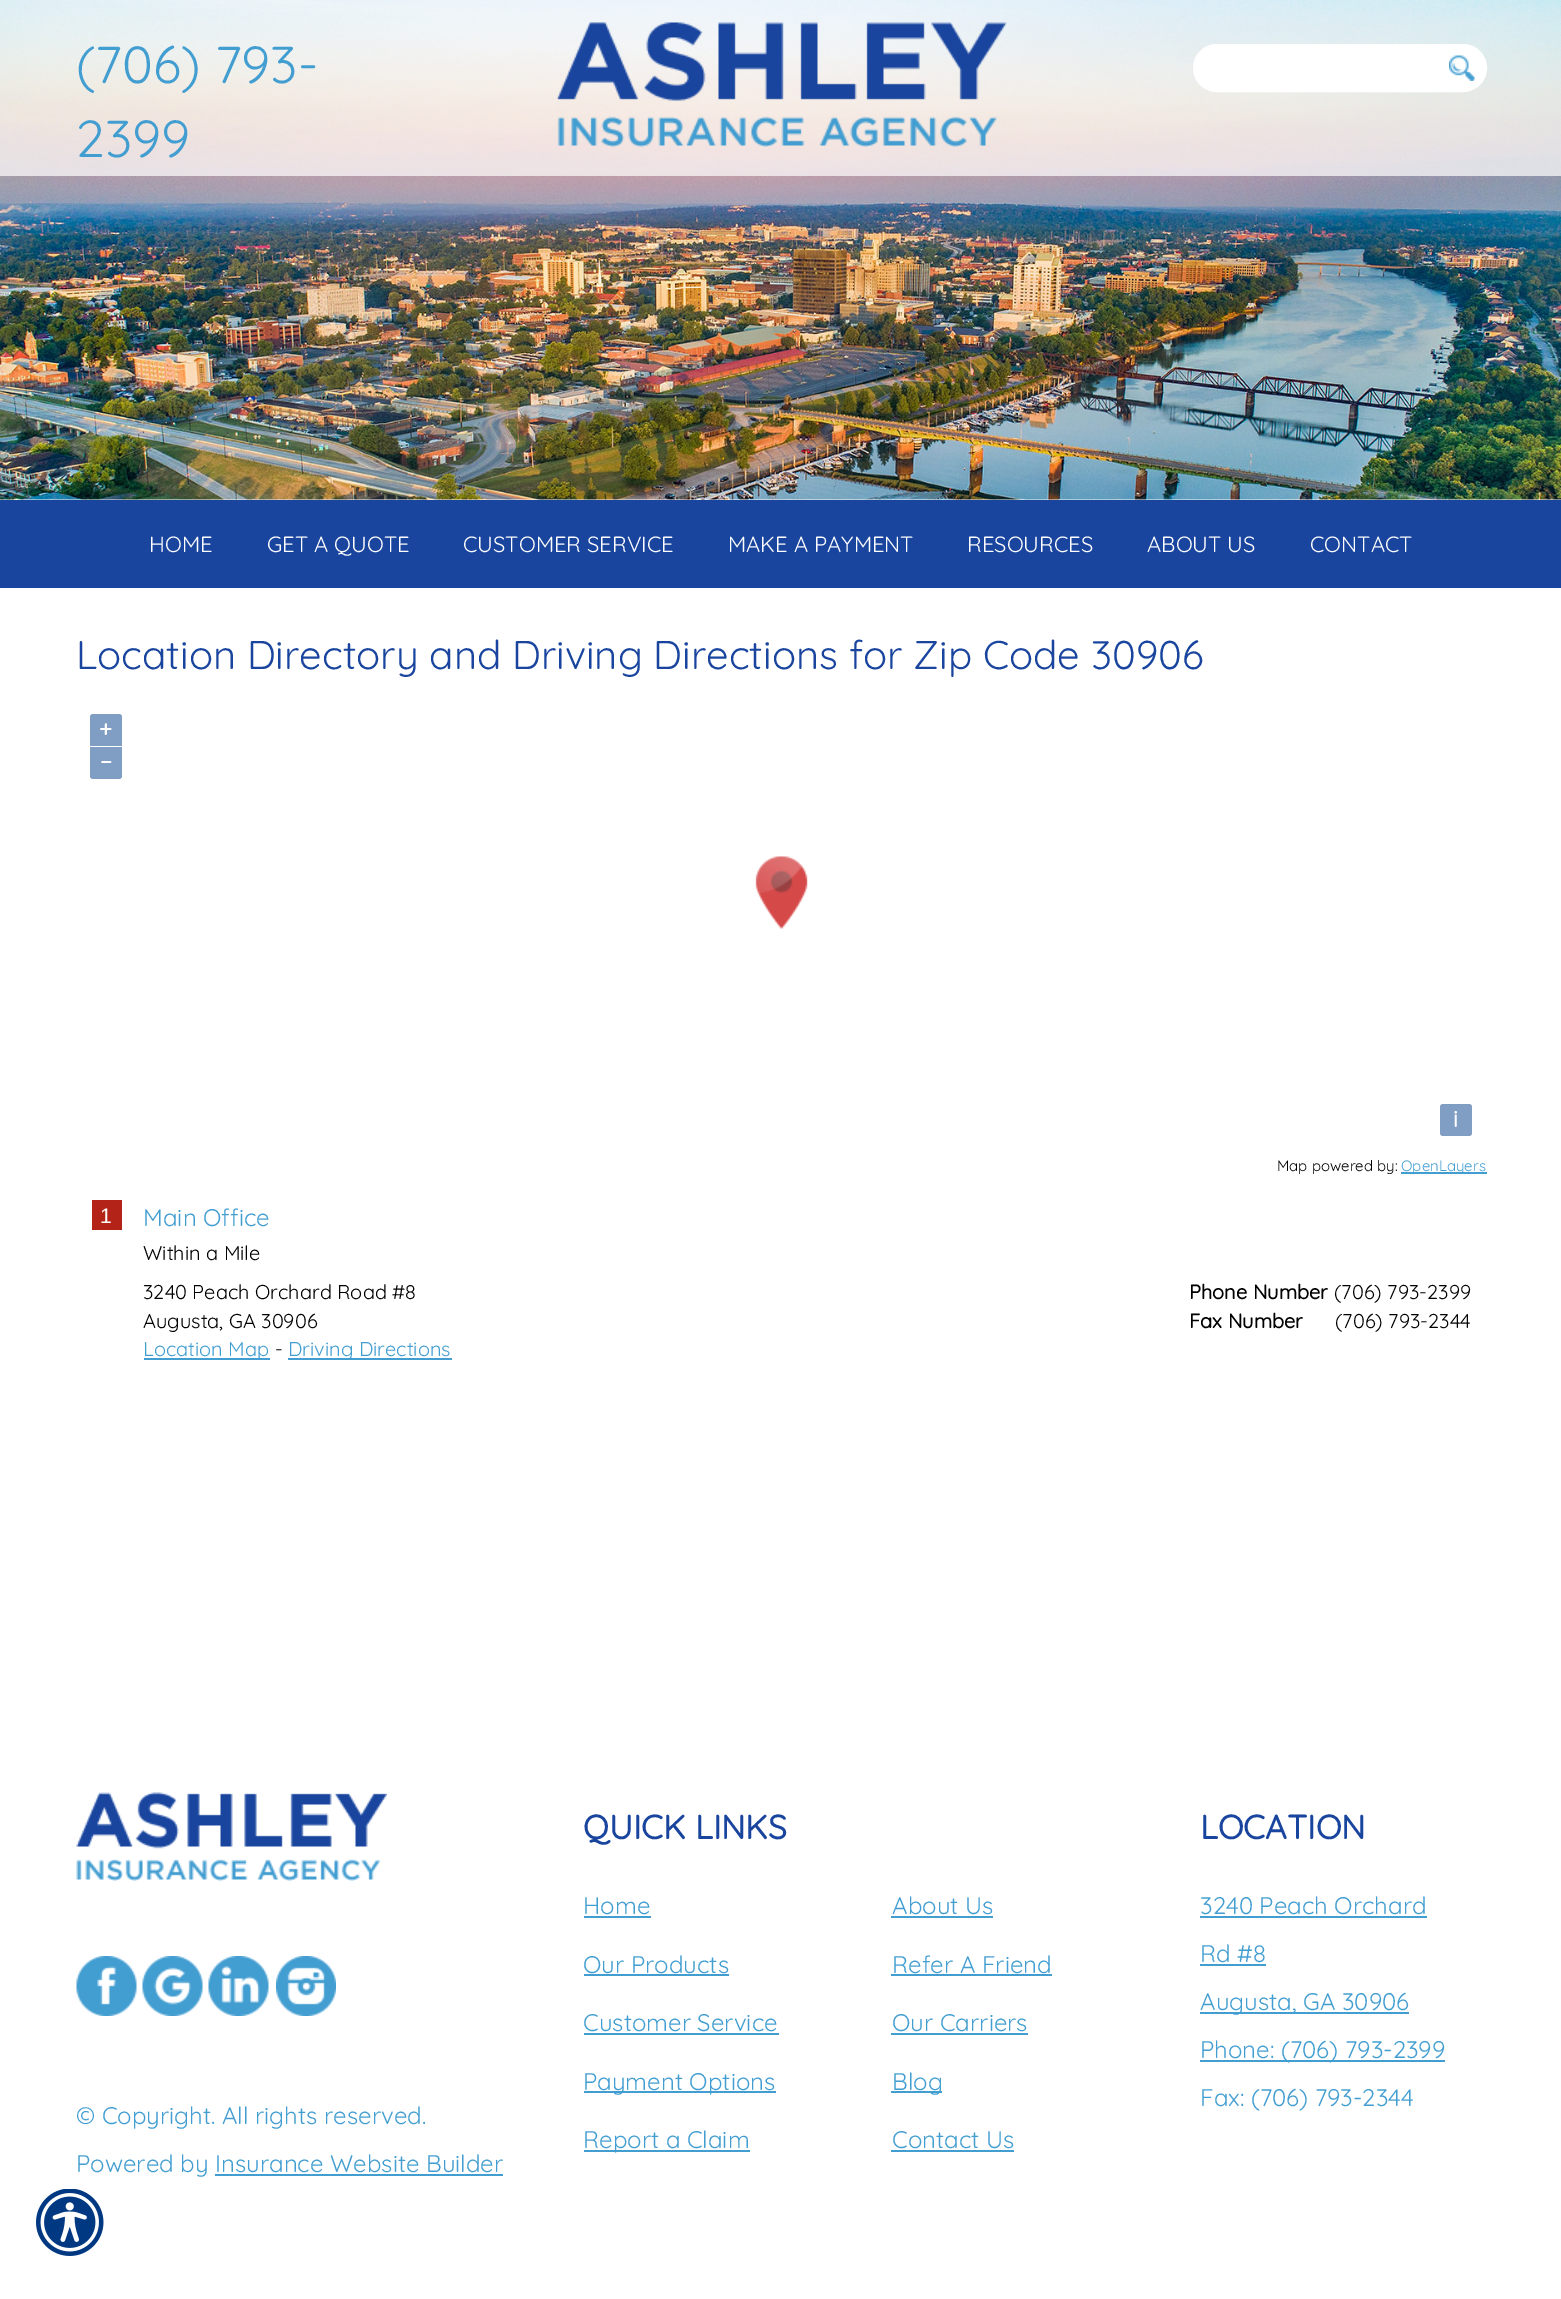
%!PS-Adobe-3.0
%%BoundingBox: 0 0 1561 2299
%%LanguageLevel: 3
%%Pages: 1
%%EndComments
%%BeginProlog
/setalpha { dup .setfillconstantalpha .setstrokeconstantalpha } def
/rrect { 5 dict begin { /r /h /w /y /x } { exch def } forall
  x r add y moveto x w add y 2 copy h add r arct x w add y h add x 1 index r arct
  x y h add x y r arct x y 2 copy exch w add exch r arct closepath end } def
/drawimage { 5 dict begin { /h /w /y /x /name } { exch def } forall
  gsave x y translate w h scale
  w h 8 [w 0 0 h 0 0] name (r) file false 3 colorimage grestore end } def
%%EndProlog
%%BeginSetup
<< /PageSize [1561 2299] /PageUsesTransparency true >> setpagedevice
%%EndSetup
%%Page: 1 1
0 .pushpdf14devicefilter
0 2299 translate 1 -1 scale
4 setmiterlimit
1 setgray
0 0 1561 2299 rectfill
(images/1.raw) 0 0 1561 500 drawimage
0.7 setalpha
0 0 1561 176 rectfill
1 setalpha
(images/2.raw) 556 22 451 125 drawimage
1194 45 292 46 23 rrect gsave fill grestore
2 setlinewidth
stroke
(images/3.raw) 1449 55 26 26 drawimage
0.098 0.271 0.62 setrgbcolor
0 500 1561 88 rectfill
0.502 0.62 0.769 setrgbcolor
newpath 93 714 moveto 119 714 lineto 120.5 714 122 715.5 122 717 curveto 122 746 lineto 90 746 lineto 90 717 lineto 90 715.5 91.5 714 93 714 curveto closepath fill
newpath 90 747 moveto 122 747 lineto 122 776 lineto 122 777.5 120.5 779 119 779 curveto 93 779 lineto 91.5 779 90 777.5 90 776 curveto closepath fill
1440 1104 32 32 3 rrect fill
(images/4.raw) 755 856 53 73 drawimage
0.259 0.616 0.82 setrgbcolor
1401 1172 86 2 rectfill
0.702 0.137 0.09 setrgbcolor
92 1200 30 30 rectfill
0.259 0.616 0.82 setrgbcolor
144 1358 126 2 rectfill
288 1358 164 2 rectfill
(images/5.raw) 76 1792 311 89 drawimage
584 1916 67 2 rectfill
584 1974 145 2 rectfill
584 2033 195 2 rectfill
584 2091 192 2 rectfill
584 2150 166 2 rectfill
891 1916 102 2 rectfill
891 1974 161 2 rectfill
891 2033 137 2 rectfill
891 2091 51 2 rectfill
891 2150 123 2 rectfill
1200 1916 227 2 rectfill
1200 1964 66 2 rectfill
1200 2012 209 2 rectfill
1200 2060 245 2 rectfill
(images/6.raw) 76 1956 61 60 drawimage
(images/7.raw) 142 1956 61 60 drawimage
(images/8.raw) 208 1956 61 60 drawimage
(images/9.raw) 276 1956 60 60 drawimage
215 2174 288 2 rectfill
(images/10.raw) 36 2189 68 67 drawimage
/Quicksand-Light [52 0 0 -52 0 0] selectfont
76 83 moveto (\(706\) 793-) show
76 157 moveto (2399) show
/Quicksand-Light [22 0 0 -22 0 0] selectfont
1 setgray
149 552 moveto (HOME) show
267 552 moveto (GET A QUOTE) show
463 552 moveto (CUSTOMER SERVICE) show
728 552 moveto (MAKE A PAYMENT) show
967 552 moveto (RESOURCES) show
1147 552 moveto (ABOUT US) show
1310 552 moveto (CONTACT) show
/Quicksand-Light [40 0 0 -40 0 0] selectfont
0.098 0.271 0.62 setrgbcolor
76 669 moveto (Location Directory and Driving Directions for Zip Code 30906) show
/Quicksand-Bold [23 0 0 -23 0 0] selectfont
1 setgray
99 737 moveto (+) show
100 770 moveto (−) show
1453 1127 moveto (i) show
/Quicksand-Light [15 0 0 -15 0 0] selectfont
0 setgray
1277 1171 moveto (Map powered by:) show
0.259 0.616 0.82 setrgbcolor
1401 1171 moveto (OpenLayers) show
/LiberationSans-Regular [21 0 0 -21 0 0] selectfont
1 setgray
100 1223 moveto (1) show
/Quicksand-Light [24 0 0 -24 0 0] selectfont
0.259 0.616 0.82 setrgbcolor
143 1226 moveto (Main Office) show
/Quicksand-Light [20 0 0 -20 0 0] selectfont
0 setgray
143 1260 moveto (Within a Mile) show
143 1299 moveto (3240 Peach Orchard Road #8) show
143 1328 moveto (Augusta, GA 30906) show
/Quicksand-Bold [20 0 0 -20 0 0] selectfont
1189 1299 moveto (Phone Number) show
/Quicksand-Light [20 0 0 -20 0 0] selectfont
1334 1299 moveto (\(706\) 793-2399) show
/Quicksand-Bold [20 0 0 -20 0 0] selectfont
1189 1328 moveto (Fax Number) show
/Quicksand-Light [20 0 0 -20 0 0] selectfont
1335 1328 moveto (\(706\) 793-2344) show
0.259 0.616 0.82 setrgbcolor
143 1356 moveto (Location Map) show
0 setgray
275 1356 moveto (-) show
0.259 0.616 0.82 setrgbcolor
288 1356 moveto (Driving Directions) show
/Quicksand-Bold [33.5 0 0 -33.5 0 0] selectfont
0.098 0.271 0.62 setrgbcolor
583 1839 moveto (QUICK LINKS) show
/Quicksand-Light [24 0 0 -24 0 0] selectfont
0.259 0.616 0.82 setrgbcolor
583 1914 moveto (Home) show
583 1973 moveto (Our Products) show
583 2031 moveto (Customer Service) show
583 2090 moveto (Payment Options) show
583 2148 moveto (Report a Claim) show
892 1914 moveto (About Us) show
892 1973 moveto (Refer A Friend) show
892 2031 moveto (Our Carriers) show
892 2090 moveto (Blog) show
892 2148 moveto (Contact Us) show
/Quicksand-Bold [33.5 0 0 -33.5 0 0] selectfont
0.098 0.271 0.62 setrgbcolor
1200 1839 moveto (LOCATION) show
/Quicksand-Light [24 0 0 -24 0 0] selectfont
0.259 0.616 0.82 setrgbcolor
1200 1914 moveto (3240 Peach Orchard) show
1200 1962 moveto (Rd #8) show
1200 2010 moveto (Augusta, GA 30906) show
1200 2058 moveto (Phone: \(706\) 793-2399) show
1200 2106 moveto (Fax: \(706\) 793-2344) show
76 2124 moveto (© Copyright. All rights reserved.) show
76 2172 moveto (Powered by Insurance Website Builder) show
.poppdf14devicefilter showpage
%%EOF
